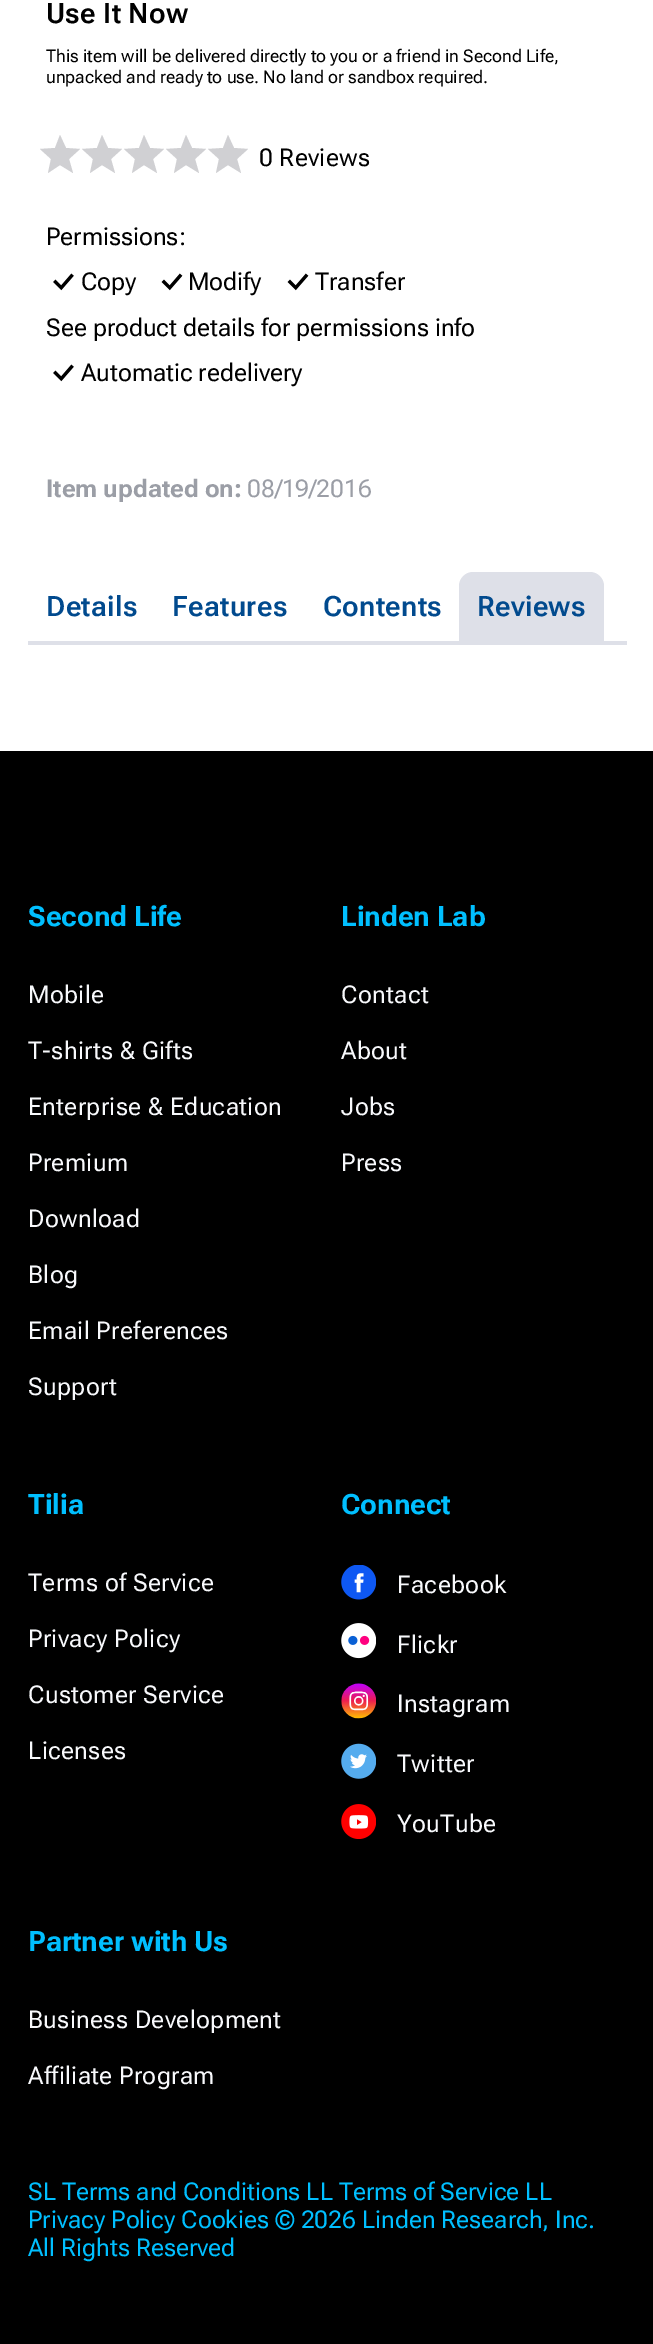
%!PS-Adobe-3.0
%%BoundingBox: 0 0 653 2344
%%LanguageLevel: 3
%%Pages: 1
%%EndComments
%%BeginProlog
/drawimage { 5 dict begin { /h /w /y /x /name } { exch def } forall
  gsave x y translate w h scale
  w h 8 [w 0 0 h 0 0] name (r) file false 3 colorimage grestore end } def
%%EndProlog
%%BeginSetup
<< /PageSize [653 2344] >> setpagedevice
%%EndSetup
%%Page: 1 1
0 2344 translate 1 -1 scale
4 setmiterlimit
1 setgray
0 0 653 2344 rectfill
0.816 0.816 0.827 setrgbcolor
newpath 60 165 moveto 73 173 lineto 69 159 lineto 80 149 lineto 66 148 lineto 60 135 lineto 55 148 lineto 40 149 lineto 51 159 lineto 48 173 lineto closepath eofill
newpath 102 165 moveto 115 173 lineto 111 159 lineto 122 149 lineto 108 148 lineto 102 135 lineto 97 148 lineto 82 149 lineto 93 159 lineto 90 173 lineto closepath eofill
newpath 144 165 moveto 157 173 lineto 153 159 lineto 164 149 lineto 150 148 lineto 144 135 lineto 139 148 lineto 124 149 lineto 135 159 lineto 132 173 lineto closepath eofill
newpath 186 165 moveto 199 173 lineto 195 159 lineto 206 149 lineto 192 148 lineto 186 135 lineto 181 148 lineto 166 149 lineto 177 159 lineto 174 173 lineto closepath eofill
newpath 228 165 moveto 241 173 lineto 237 159 lineto 248 149 lineto 234 148 lineto 228 135 lineto 223 148 lineto 208 149 lineto 219 159 lineto 216 173 lineto closepath eofill
(images/1.raw) 53 273 21 18 drawimage
(images/2.raw) 161 273 22 18 drawimage
(images/2.raw) 287 273 22 18 drawimage
(images/1.raw) 53 364 21 18 drawimage
0.871 0.878 0.91 setrgbcolor
28 641 599 4 rectfill
newpath 473 572 moveto 590 572 lineto 597.5 572 604 578.5 604 586 curveto 604 642 lineto 459 642 lineto 459 586 lineto 459 578.5 465.5 572 473 572 curveto closepath fill
0 setgray
0 751 653 1593 rectfill
(images/3.raw) 341 1565 35 35 drawimage
(images/4.raw) 341 1623 35 36 drawimage
(images/5.raw) 341 1683 35 36 drawimage
(images/6.raw) 341 1743 35 36 drawimage
(images/7.raw) 341 1804 35 35 drawimage
/RobotoFlex-SemiBold [28 0 0 -28 0 0] selectfont
46 23 moveto 0.35 0 (Use It Now) ashow
/RobotoFlex-Regular [17.5 0 0 -17.5 0 0] selectfont
46 62 moveto (This item will be delivered directly to you or a friend in Second Life,) show
46 83 moveto (unpacked and ready to use. No land or sandbox required.) show
/RobotoFlex-Regular [24.5 0 0 -24.5 0 0] selectfont
259 166 moveto 0.25 0 (0 Reviews) ashow
46 245 moveto (Permissions:) show
81 290 moveto (Copy) show
188 290 moveto (Modify) show
315 290 moveto (Transfer) show
46 336 moveto (See product details for permissions info) show
81 381 moveto (Automatic redelivery) show
/RobotoFlex-Bold [24.5 0 0 -24.5 0 0] selectfont
0.608 0.62 0.651 setrgbcolor
46 497 moveto (Item updated on:) show
/RobotoFlex-Regular [24.5 0 0 -24.5 0 0] selectfont
247 497 moveto (08/19/2016) show
/RobotoFlex-SemiBold [28 0 0 -28 0 0] selectfont
0.004 0.29 0.557 setrgbcolor
46 616 moveto 0.35 0 (Details) ashow
172 616 moveto 0.35 0 (Features) ashow
323 616 moveto 0.35 0 (Contents) ashow
477 616 moveto 0.35 0 (Reviews) ashow
/RobotoFlex-Bold [28 0 0 -28 0 0] selectfont
0 0.749 1 setrgbcolor
28 926 moveto (Second Life) show
/RobotoFlex-Regular [24.5 0 0 -24.5 0 0] selectfont
0.973 0.976 0.988 setrgbcolor
28 1003 moveto 0.35 0 (Mobile) ashow
28 1059 moveto 0.35 0 (T-shirts & Gifts) ashow
28 1115 moveto 0.35 0 (Enterprise & Education) ashow
28 1171 moveto 0.35 0 (Premium) ashow
28 1227 moveto 0.35 0 (Download) ashow
28 1283 moveto 0.35 0 (Blog) ashow
28 1339 moveto 0.35 0 (Email Preferences) ashow
28 1395 moveto 0.35 0 (Support) ashow
/RobotoFlex-Bold [28 0 0 -28 0 0] selectfont
0 0.749 1 setrgbcolor
341 926 moveto (Linden Lab) show
/RobotoFlex-Regular [24.5 0 0 -24.5 0 0] selectfont
0.973 0.976 0.988 setrgbcolor
341 1003 moveto 0.35 0 (Contact) ashow
341 1059 moveto 0.35 0 (About) ashow
341 1115 moveto 0.35 0 (Jobs) ashow
341 1171 moveto 0.35 0 (Press) ashow
/RobotoFlex-Bold [28 0 0 -28 0 0] selectfont
0 0.749 1 setrgbcolor
28 1514 moveto (Tilia) show
/RobotoFlex-Regular [24.5 0 0 -24.5 0 0] selectfont
0.973 0.976 0.988 setrgbcolor
28 1591 moveto 0.35 0 (Terms of Service) ashow
28 1647 moveto 0.35 0 (Privacy Policy) ashow
28 1703 moveto 0.35 0 (Customer Service) ashow
28 1759 moveto 0.35 0 (Licenses) ashow
/RobotoFlex-Bold [28 0 0 -28 0 0] selectfont
0 0.749 1 setrgbcolor
341 1514 moveto (Connect) show
/RobotoFlex-Regular [24.5 0 0 -24.5 0 0] selectfont
0.973 0.976 0.988 setrgbcolor
397 1593 moveto 0.35 0 (Facebook) ashow
397 1653 moveto 0.35 0 (Flickr) ashow
397 1712 moveto 0.35 0 (Instagram) ashow
397 1772 moveto 0.35 0 (Twitter) ashow
397 1832 moveto 0.35 0 (YouTube) ashow
/RobotoFlex-Bold [28 0 0 -28 0 0] selectfont
0 0.749 1 setrgbcolor
28 1951 moveto (Partner with Us) show
/RobotoFlex-Regular [24.5 0 0 -24.5 0 0] selectfont
0.973 0.976 0.988 setrgbcolor
28 2028 moveto 0.35 0 (Business Development) ashow
28 2084 moveto 0.35 0 (Affiliate Program) ashow
0 0.749 1 setrgbcolor
28 2200 moveto (SL Terms and Conditions LL Terms of Service LL) show
28 2228 moveto (Privacy Policy Cookies © 2026 Linden Research, Inc.) show
28 2256 moveto (All Rights Reserved) show
showpage
%%EOF
